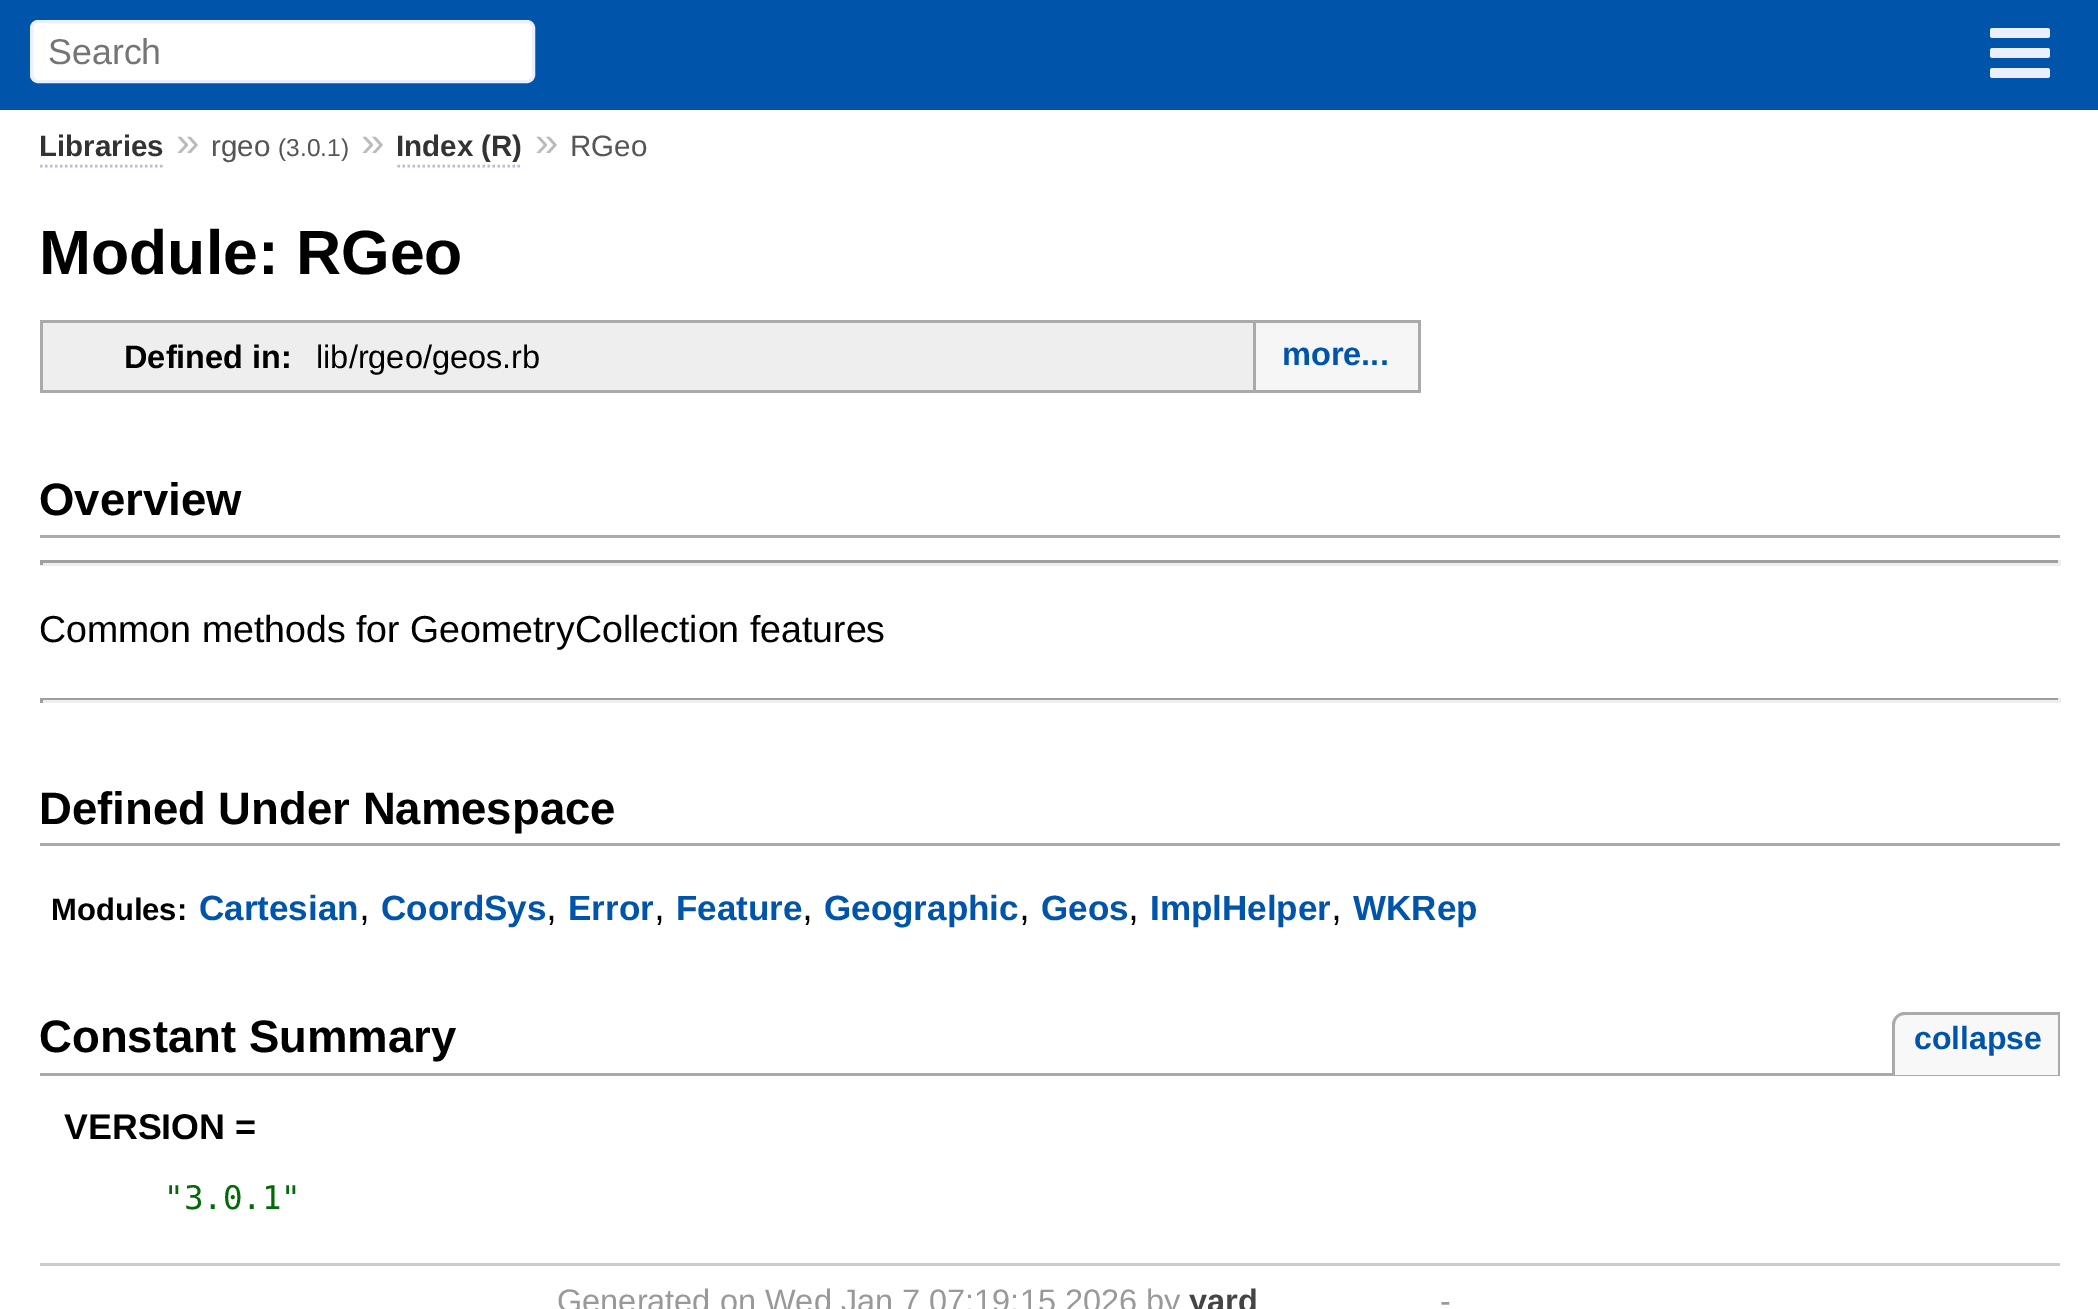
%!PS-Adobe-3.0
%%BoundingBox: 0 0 2098 1309
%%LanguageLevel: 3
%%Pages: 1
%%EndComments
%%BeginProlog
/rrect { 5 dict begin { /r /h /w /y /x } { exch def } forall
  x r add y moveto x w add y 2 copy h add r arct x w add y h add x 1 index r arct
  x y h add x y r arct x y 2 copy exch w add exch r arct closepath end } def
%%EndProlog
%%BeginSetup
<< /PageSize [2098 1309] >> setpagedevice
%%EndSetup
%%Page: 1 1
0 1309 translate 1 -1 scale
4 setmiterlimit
1 setgray
0 0 2098 1309 rectfill
0 0.333 0.667 setrgbcolor
0 0 2098 110 rectfill
1 setgray
31.5 21.5 502 60 6.5 rrect gsave fill grestore
0.918 0.941 1 setrgbcolor
3 setlinewidth
stroke
1990 28 60 10 2.5 rrect fill
1990 48 60 10 2.5 rrect fill
1990 68 60 10 2.5 rrect fill
0.733 0.733 0.867 setrgbcolor
2.5 setlinewidth
[2.5 2.5] 0 setdash
newpath 40 166 moveto 165 166 lineto stroke
newpath 397.5 166 moveto 522.5 166 lineto stroke
0.933 setgray
43 323 1210 67 rectfill
0.667 setgray
40 320 1380 3 rectfill
40 390 278 3 rectfill
40 320 3 73 rectfill
1418 320 3 73 rectfill
318 390 1102 3 rectfill
0.965 setgray
1256 323 162 67 rectfill
0.667 setgray
1253 323 3 67 rectfill
40 535 2020 3 rectfill
0.624 setgray
40 560 2020 3 rectfill
0.933 setgray
2058 560 3 5 rectfill
40 563 2020 3 rectfill
0.624 setgray
40 560 3 5 rectfill
40 698 2020 2 rectfill
0.933 setgray
2058 698 3 5 rectfill
40 700 2020 3 rectfill
0.624 setgray
40 698 3 5 rectfill
0.667 setgray
40 843 2020 3 rectfill
40 1073 2020 3 rectfill
0.973 setgray
newpath 1906 1013 moveto 2060 1013 lineto 2060 1075 lineto 1893 1075 lineto 1893 1026 lineto 1893 1019 1899 1013 1906 1013 curveto closepath fill
0.667 setgray
newpath 1905 1012 moveto 2060 1012 lineto 2060 1075 lineto 1892 1075 lineto 1892 1025 lineto 1892 1018 1898 1012 1905 1012 curveto closepath 1905 1015 moveto 2058 1015 lineto 2058 1075 lineto 1895 1075 lineto 1895 1025 lineto 1895 1019 1899 1015 1905 1015 curveto closepath eofill
0.8 setgray
40 1263 2020 3 rectfill
/LiberationSans-Regular [35.75 0 0 -35.75 0 0] selectfont
0.459 setgray
48 64 moveto (Search) show
/LiberationSans-Bold [29.5 0 0 -29.5 0 0] selectfont
0.2 setgray
39 156 moveto (Libraries) show
/LiberationSans-Regular [42 0 0 -42 0 0] selectfont
0.733 setgray
176 156 moveto (») show
/LiberationSans-Regular [29.5 0 0 -29.5 0 0] selectfont
0.333 setgray
211 156 moveto (rgeo) show
/LiberationSans-Regular [24.5 0 0 -24.5 0 0] selectfont
278 156 moveto (\(3.0.1\)) show
/LiberationSans-Regular [42 0 0 -42 0 0] selectfont
0.733 setgray
361 156 moveto (») show
/LiberationSans-Bold [29.5 0 0 -29.5 0 0] selectfont
0.2 setgray
396 156 moveto (Index \(R\)) show
/LiberationSans-Regular [42 0 0 -42 0 0] selectfont
0.733 setgray
535 156 moveto (») show
/LiberationSans-Regular [29.5 0 0 -29.5 0 0] selectfont
0.333 setgray
570 156 moveto (RGeo) show
/LiberationSans-Bold [62.5 0 0 -62.5 0 0] selectfont
0 setgray
39 274 moveto (Module: RGeo) show
/LiberationSans-Bold [32.5 0 0 -32.5 0 0] selectfont
124 368 moveto (Defined in:) show
/LiberationSans-Regular [32.5 0 0 -32.5 0 0] selectfont
316 368 moveto (lib/rgeo/geos.rb) show
/LiberationSans-Bold [32.5 0 0 -32.5 0 0] selectfont
0 0.333 0.667 setrgbcolor
1282 365 moveto (more...) show
/LiberationSans-Bold [45.5 0 0 -45.5 0 0] selectfont
0 setgray
39 515 moveto (Overview) show
/LiberationSans-Regular [37.5 0 0 -37.5 0 0] selectfont
39 642 moveto (Common methods for GeometryCollection features) show
/LiberationSans-Bold [45.5 0 0 -45.5 0 0] selectfont
39 824 moveto (Defined Under Namespace) show
/LiberationSans-Bold [31 0 0 -31 0 0] selectfont
51 920 moveto (Modules:) show
/LiberationSans-Bold [35 0 0 -35 0 0] selectfont
0 0.333 0.667 setrgbcolor
199 920 moveto (Cartesian) show
/LiberationSans-Regular [39 0 0 -39 0 0] selectfont
0 setgray
359 920 moveto (,) show
/LiberationSans-Bold [35 0 0 -35 0 0] selectfont
0 0.333 0.667 setrgbcolor
381 920 moveto (CoordSys) show
/LiberationSans-Regular [39 0 0 -39 0 0] selectfont
0 setgray
546 920 moveto (,) show
/LiberationSans-Bold [35 0 0 -35 0 0] selectfont
0 0.333 0.667 setrgbcolor
568 920 moveto (Error) show
/LiberationSans-Regular [39 0 0 -39 0 0] selectfont
0 setgray
654 920 moveto (,) show
/LiberationSans-Bold [35 0 0 -35 0 0] selectfont
0 0.333 0.667 setrgbcolor
676 920 moveto (Feature) show
/LiberationSans-Regular [39 0 0 -39 0 0] selectfont
0 setgray
802 920 moveto (,) show
/LiberationSans-Bold [35 0 0 -35 0 0] selectfont
0 0.333 0.667 setrgbcolor
824 920 moveto (Geographic) show
/LiberationSans-Regular [39 0 0 -39 0 0] selectfont
0 setgray
1019 920 moveto (,) show
/LiberationSans-Bold [35 0 0 -35 0 0] selectfont
0 0.333 0.667 setrgbcolor
1041 920 moveto (Geos) show
/LiberationSans-Regular [39 0 0 -39 0 0] selectfont
0 setgray
1128 920 moveto (,) show
/LiberationSans-Bold [35 0 0 -35 0 0] selectfont
0 0.333 0.667 setrgbcolor
1150 920 moveto (ImplHelper) show
/LiberationSans-Regular [39 0 0 -39 0 0] selectfont
0 setgray
1331 920 moveto (,) show
/LiberationSans-Bold [35 0 0 -35 0 0] selectfont
0 0.333 0.667 setrgbcolor
1353 920 moveto (WKRep) show
/LiberationSans-Bold [45.5 0 0 -45.5 0 0] selectfont
0 setgray
39 1052 moveto (Constant Summary) show
/LiberationSans-Bold [32 0 0 -32 0 0] selectfont
0 0.333 0.667 setrgbcolor
1914 1049 moveto (collapse) show
/LiberationSans-Bold [35.75 0 0 -35.75 0 0] selectfont
0 setgray
64 1139 moveto (VERSION =) show
/DejaVuSansMono-Regular [32.5 0 0 -32.5 0 0] selectfont
0.012 0.416 0.027 setrgbcolor
164 1209 moveto ("3.0.1") show
/LiberationSans-Regular [32.5 0 0 -32.5 0 0] selectfont
0.6 setgray
557 1312 moveto (Generated on Wed Jan 7 07:19:15 2026 by) show
/LiberationSans-Bold [32.5 0 0 -32.5 0 0] selectfont
0.267 setgray
1189 1312 moveto (yard) show
/LiberationSans-Regular [32.5 0 0 -32.5 0 0] selectfont
0.6 setgray
1440 1312 moveto (-) show
showpage
%%EOF
